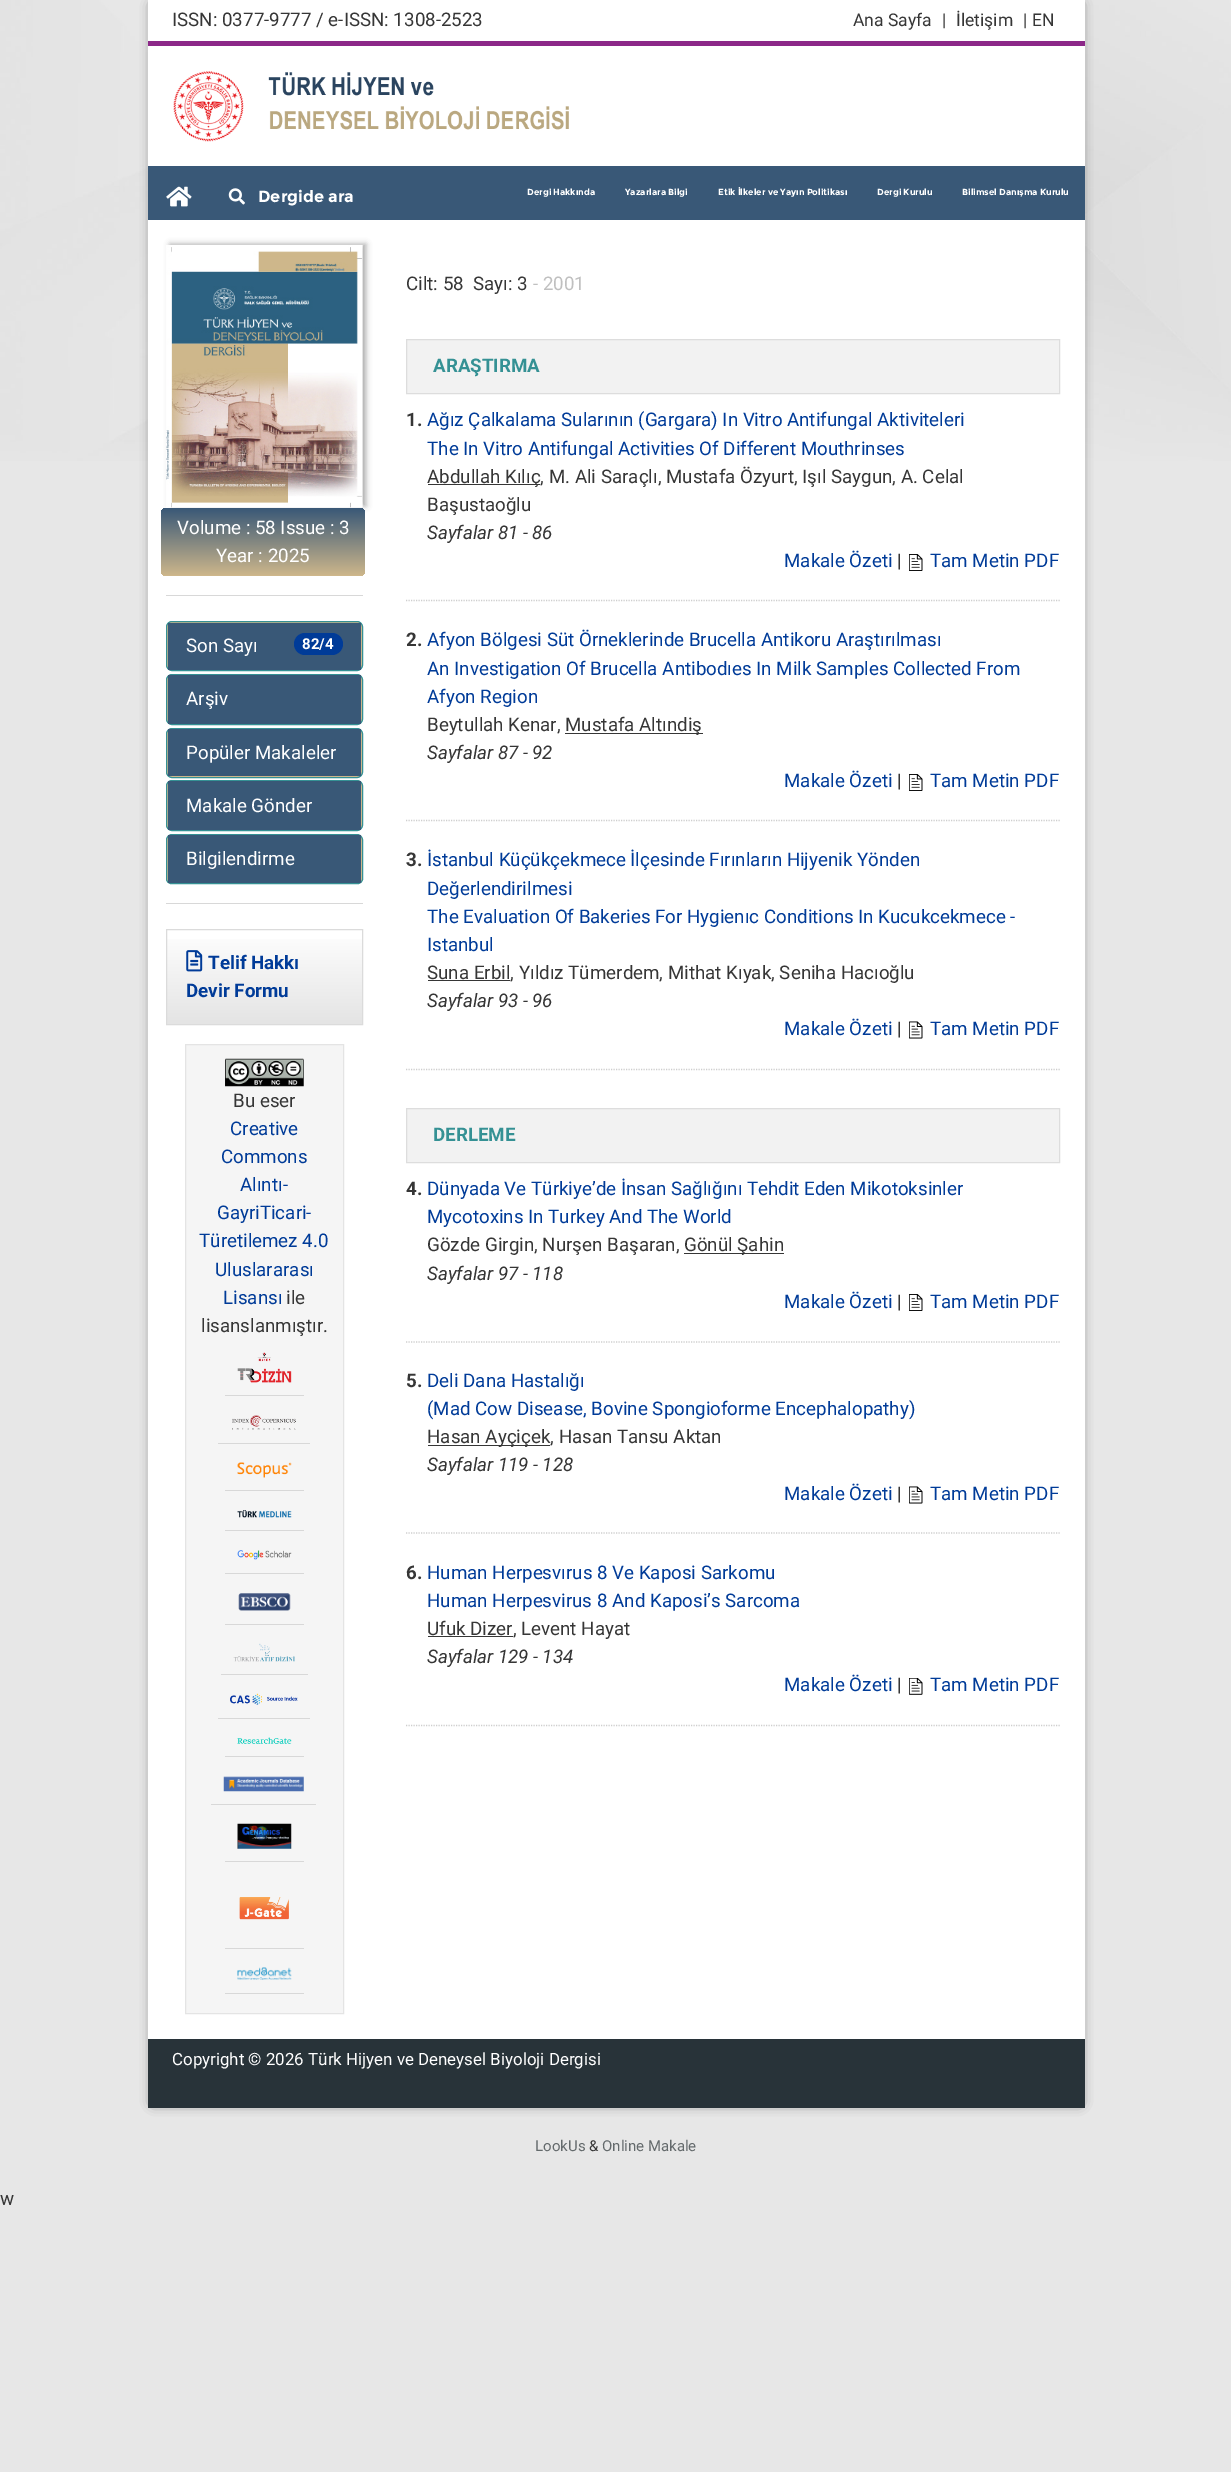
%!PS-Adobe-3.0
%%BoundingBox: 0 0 1231 2472
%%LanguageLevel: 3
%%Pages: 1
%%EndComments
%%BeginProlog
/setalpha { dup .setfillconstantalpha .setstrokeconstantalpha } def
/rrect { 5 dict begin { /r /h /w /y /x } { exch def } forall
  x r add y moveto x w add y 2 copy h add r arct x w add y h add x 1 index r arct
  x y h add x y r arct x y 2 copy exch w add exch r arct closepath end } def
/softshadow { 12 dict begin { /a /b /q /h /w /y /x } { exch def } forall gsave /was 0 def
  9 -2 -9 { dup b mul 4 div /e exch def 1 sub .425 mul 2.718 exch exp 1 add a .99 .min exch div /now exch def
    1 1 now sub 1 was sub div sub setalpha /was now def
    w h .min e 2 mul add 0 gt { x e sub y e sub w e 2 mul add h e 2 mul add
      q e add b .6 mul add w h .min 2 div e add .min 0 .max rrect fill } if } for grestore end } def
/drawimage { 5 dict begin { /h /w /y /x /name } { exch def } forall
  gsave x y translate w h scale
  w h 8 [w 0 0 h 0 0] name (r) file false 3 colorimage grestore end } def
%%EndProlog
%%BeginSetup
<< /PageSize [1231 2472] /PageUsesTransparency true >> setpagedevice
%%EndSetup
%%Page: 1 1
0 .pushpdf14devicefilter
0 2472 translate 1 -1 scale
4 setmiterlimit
0.906 setgray
0 0 1231 2472 rectfill
(images/1.raw) 0 0 1231 461 drawimage
0 setgray
153 5 927 2098 0 6 0.71 softshadow
1 setgray
148 0 937 2039 rectfill
0.549 0.157 0.533 setrgbcolor
148 41 937 5 rectfill
(images/2.raw) 173 71 396 71 drawimage
0.224 0.345 0.467 setrgbcolor
148 166 937 54 rectfill
(images/3.raw) 166 186 26 21 drawimage
(images/4.raw) 228 188 17 17 drawimage
0 setgray
170 244 196 262 0 3 0.33 softshadow
(images/5.raw) 166 245 197 263 drawimage
0.847 setgray
166 595 197 1 rectfill
gsave 161 508 204 68 6 rrect clip newpath
<< /ShadingType 2 /ColorSpace /DeviceRGB /Coords [263 508 263 576] /Extend [true true] /Function << /FunctionType 2 /Domain [0 1] /C0 [0.224 0.345 0.467] /C1 [0.808 0.718 0.545] /N 1 >> >> shfill grestore
166 903 197 1 rectfill
0.808 0.718 0.545 setrgbcolor
166.5 621.5 196 49 5.5 rrect gsave fill grestore
0.208 0.569 0.58 setrgbcolor
stroke
0.224 0.345 0.467 setrgbcolor
168 623 193 47 rectfill
0 0.231 0.596 setrgbcolor
294 633 49 22 11 rrect fill
0.808 0.718 0.545 setrgbcolor
166.5 674.5 196 50 5.5 rrect gsave fill grestore
0.208 0.569 0.58 setrgbcolor
stroke
0.224 0.345 0.467 setrgbcolor
168 675 193 49 rectfill
0.808 0.718 0.545 setrgbcolor
166.5 728.5 196 49 5.5 rrect gsave fill grestore
0.208 0.569 0.58 setrgbcolor
stroke
0.224 0.345 0.467 setrgbcolor
168 729 193 47 rectfill
0.808 0.718 0.545 setrgbcolor
166.5 780.5 196 50 5.5 rrect gsave fill grestore
0.208 0.569 0.58 setrgbcolor
stroke
0.224 0.345 0.467 setrgbcolor
168 781 193 49 rectfill
0.808 0.718 0.545 setrgbcolor
newpath 172 834.5 moveto 357 834.5 lineto 360 834.5 362.5 837 362.5 840 curveto 362.5 879 lineto 362.5 881.5 360.5 883.5 358 883.5 curveto 171 883.5 lineto 168.5 883.5 166.5 881.5 166.5 879 curveto 166.5 840 lineto 166.5 837 169 834.5 172 834.5 curveto closepath gsave fill grestore
0.208 0.569 0.58 setrgbcolor
stroke
0.224 0.345 0.467 setrgbcolor
168 835 193 48 rectfill
gsave newpath 167 939 moveto 362 939 lineto 362 1024 lineto 167 1024 lineto closepath clip newpath
<< /ShadingType 2 /ColorSpace /DeviceRGB /Coords [264 1024 264 930] /Extend [true true] /Function << /FunctionType 2 /Domain [0 1] /C0 [0.894 0.894 0.894] /C1 [1 1 1] /N 1 >> >> shfill grestore
0.859 setgray
166.5 929.5 196 95 rectstroke
(images/6.raw) 186 950 17 22 drawimage
0.961 setgray
newpath 185.5 1044.5 moveto 343.5 1044.5 lineto 343.5 2013.5 lineto 185.5 2013.5 lineto closepath gsave fill grestore
0.894 setgray
stroke
(images/7.raw) 225 1058 79 29 drawimage
(images/8.raw) 237 1352 55 31 drawimage
0.847 setgray
225 1395 79 1 rectfill
(images/9.raw) 232 1415 64 15 drawimage
218 1443 92 1 rectfill
(images/10.raw) 237 1462 55 16 drawimage
225 1490 79 1 rectfill
(images/11.raw) 237 1510 55 8 drawimage
225 1530 79 1 rectfill
(images/12.raw) 237 1550 55 10 drawimage
225 1573 79 1 rectfill
(images/13.raw) 238 1593 53 18 drawimage
225 1624 79 1 rectfill
(images/14.raw) 233 1643 62 19 drawimage
221 1674 87 1 rectfill
(images/15.raw) 230 1693 68 12 drawimage
218 1718 92 1 rectfill
(images/16.raw) 237 1737 55 7 drawimage
225 1756 79 1 rectfill
(images/17.raw) 223 1776 81 16 drawimage
211 1804 105 1 rectfill
(images/18.raw) 237 1823 55 26 drawimage
225 1861 79 1 rectfill
(images/19.raw) 239 1897 50 23 drawimage
225 1948 79 1 rectfill
(images/20.raw) 237 1967 55 13 drawimage
225 1993 79 1 rectfill
0.949 setgray
newpath 406.5 339.5 moveto 1059.5 339.5 lineto 1059.5 393.5 lineto 406.5 393.5 lineto closepath gsave fill grestore
0.867 setgray
stroke
0.212 setgray
428 484 112 1 rectfill
(images/21.raw) 909 554 14 17 drawimage
0.808 setgray
1.2 setlinewidth
[1.25 1.25] 0 setdash
newpath 406 600.5 moveto 1060 600.5 lineto stroke
0.212 setgray
565 733 138 1 rectfill
(images/21.raw) 909 774 14 17 drawimage
0.808 setgray
newpath 406 820.5 moveto 1060 820.5 lineto stroke
0.212 setgray
428 980 82 1 rectfill
(images/22.raw) 909 1021 14 18 drawimage
0.808 setgray
newpath 406 1069.5 moveto 1060 1069.5 lineto stroke
0.949 setgray
newpath 406.5 1108.5 moveto 1059.5 1108.5 lineto 1059.5 1162.5 lineto 406.5 1162.5 lineto closepath gsave fill grestore
0.867 setgray
1 setlinewidth
[] 0 setdash
stroke
0.212 setgray
684 1253 100 1 rectfill
(images/21.raw) 909 1294 14 17 drawimage
0.808 setgray
1.2 setlinewidth
[1.25 1.25] 0 setdash
newpath 406 1342 moveto 1060 1342 lineto stroke
0.212 setgray
428 1445 122 1 rectfill
(images/22.raw) 909 1486 14 18 drawimage
0.808 setgray
newpath 406 1533 moveto 1060 1533 lineto stroke
0.212 setgray
428 1636 85 1 rectfill
(images/23.raw) 909 1678 14 17 drawimage
0.808 setgray
newpath 406 1725.5 moveto 1060 1725.5 lineto stroke
0.157 0.2 0.224 setrgbcolor
148 2039 937 69 rectfill
/Roboto-Regular [18.75 0 0 -18.75 0 0] selectfont
0.212 setgray
172 26 moveto (ISSN: 0377-9777 / e-ISSN: 1308-2523) show
/Roboto-Regular [17.5 0 0 -17.5 0 0] selectfont
853 26 moveto (Ana Sayfa) show
942 26 moveto (|) show
956 26 moveto (İletişim) show
1023 26 moveto (| EN) show
/Montserrat-Bold [16.25 0 0 -16.25 0 0] selectfont
1 setgray
258 202 moveto (Dergide ara) show
/Montserrat-Bold [8.75 0 0 -8.75 0 0] selectfont
527 195 moveto (Dergi Hakkında) show
625 195 moveto (Yazarlara Bilgi) show
718 195 moveto (Etik İlkeler ve Yayın Politikası) show
877 195 moveto (Dergi Kurulu) show
962 195 moveto (Bilimsel Danışma Kurulu) show
/Roboto-Regular [18.75 0 0 -18.75 0 0] selectfont
177 534 moveto (Volume : 58 Issue : 3) show
216 562 moveto (Year : 2025) show
186 652 moveto (Son Sayı) show
/Roboto-Bold [15 0 0 -15 0 0] selectfont
302 649 moveto (82/4) show
/Roboto-Regular [18.75 0 0 -18.75 0 0] selectfont
186 705 moveto (Arşiv) show
186 759 moveto (Popüler Makaleler) show
186 812 moveto (Makale Gönder) show
186 865 moveto (Bilgilendirme) show
/Roboto-Bold [18.75 0 0 -18.75 0 0] selectfont
0 0.231 0.596 setrgbcolor
208 969 moveto (Telif Hakkı) show
186 997 moveto (Devir Formu) show
/Roboto-Regular [18.75 0 0 -18.75 0 0] selectfont
0.212 setgray
233 1107 moveto (Bu eser) show
0 0.231 0.596 setrgbcolor
230 1135 moveto (Creative) show
221 1163 moveto (Commons) show
240 1191 moveto (Alıntı-) show
217 1219 moveto (GayriTicari-) show
199 1247 moveto (Türetilemez 4.0) show
215 1276 moveto (Uluslararası) show
223 1304 moveto (Lisansı) show
0.212 setgray
286 1304 moveto (ile) show
201 1332 moveto (lisanslanmıştır.) show
406 290 moveto (Cilt: 58  Sayı: 3) show
0.753 setgray
533 290 moveto (- 2001) show
/Roboto-Bold [18.75 0 0 -18.75 0 0] selectfont
0.208 0.569 0.58 setrgbcolor
433 372 moveto (ARAŞTIRMA) show
0.212 setgray
406 426 moveto (1.) show
/Roboto-Regular [18.75 0 0 -18.75 0 0] selectfont
0 0.231 0.596 setrgbcolor
427 426 moveto (Ağız Çalkalama Sularının \(Gargara\) In Vitro Antifungal Aktiviteleri) show
427 455 moveto (The In Vitro Antifungal Activities Of Different Mouthrinses) show
0.212 setgray
427 483 moveto (Abdullah Kılıç, M. Ali Saraçlı, Mustafa Özyurt, Işıl Saygun, A. Celal) show
427 511 moveto (Başustaoğlu) show
/Roboto-Italic [18.75 0 0 -18.75 0 0] selectfont
427 539 moveto (Sayfalar 81 - 86) show
/Roboto-Regular [18.75 0 0 -18.75 0 0] selectfont
0 0.231 0.596 setrgbcolor
784 567 moveto (Makale Özeti) show
0.212 setgray
897 567 moveto (|) show
0 0.231 0.596 setrgbcolor
930 567 moveto (Tam Metin PDF) show
/Roboto-Bold [18.75 0 0 -18.75 0 0] selectfont
0.212 setgray
406 646 moveto (2.) show
/Roboto-Regular [18.75 0 0 -18.75 0 0] selectfont
0 0.231 0.596 setrgbcolor
427 646 moveto (Afyon Bölgesi Süt Örneklerinde Brucella Antikoru Araştırılması) show
427 675 moveto (An Investigation Of Brucella Antibodıes In Milk Samples Collected From) show
427 703 moveto (Afyon Region) show
0.212 setgray
427 731 moveto (Beytullah Kenar,) show
565 731 moveto (Mustafa Altındiş) show
/Roboto-Italic [18.75 0 0 -18.75 0 0] selectfont
427 759 moveto (Sayfalar 87 - 92) show
/Roboto-Regular [18.75 0 0 -18.75 0 0] selectfont
0 0.231 0.596 setrgbcolor
784 787 moveto (Makale Özeti) show
0.212 setgray
897 787 moveto (|) show
0 0.231 0.596 setrgbcolor
930 787 moveto (Tam Metin PDF) show
/Roboto-Bold [18.75 0 0 -18.75 0 0] selectfont
0.212 setgray
406 866 moveto (3.) show
/Roboto-Regular [18.75 0 0 -18.75 0 0] selectfont
0 0.231 0.596 setrgbcolor
427 866 moveto (İstanbul Küçükçekmece İlçesinde Fırınların Hijyenik Yönden) show
427 895 moveto (Değerlendirilmesi) show
427 923 moveto (The Evaluation Of Bakeries For Hygienıc Conditions In Kucukcekmece -) show
427 951 moveto (Istanbul) show
0.212 setgray
427 979 moveto (Suna Erbil, Yıldız Tümerdem, Mithat Kıyak, Seniha Hacıoğlu) show
/Roboto-Italic [18.75 0 0 -18.75 0 0] selectfont
427 1007 moveto (Sayfalar 93 - 96) show
/Roboto-Regular [18.75 0 0 -18.75 0 0] selectfont
0 0.231 0.596 setrgbcolor
784 1035 moveto (Makale Özeti) show
0.212 setgray
897 1035 moveto (|) show
0 0.231 0.596 setrgbcolor
930 1035 moveto (Tam Metin PDF) show
/Roboto-Bold [18.75 0 0 -18.75 0 0] selectfont
0.208 0.569 0.58 setrgbcolor
433 1141 moveto (DERLEME) show
0.212 setgray
406 1195 moveto (4.) show
/Roboto-Regular [18.75 0 0 -18.75 0 0] selectfont
0 0.231 0.596 setrgbcolor
427 1195 moveto (Dünyada Ve Türkiye’de İnsan Sağlığını Tehdit Eden Mikotoksinler) show
427 1223 moveto (Mycotoxins In Turkey And The World) show
0.212 setgray
427 1251 moveto (Gözde Girgin, Nurşen Başaran,) show
684 1251 moveto (Gönül Şahin) show
/Roboto-Italic [18.75 0 0 -18.75 0 0] selectfont
427 1280 moveto (Sayfalar 97 - 118) show
/Roboto-Regular [18.75 0 0 -18.75 0 0] selectfont
0 0.231 0.596 setrgbcolor
784 1308 moveto (Makale Özeti) show
0.212 setgray
897 1308 moveto (|) show
0 0.231 0.596 setrgbcolor
930 1308 moveto (Tam Metin PDF) show
/Roboto-Bold [18.75 0 0 -18.75 0 0] selectfont
0.212 setgray
406 1387 moveto (5.) show
/Roboto-Regular [18.75 0 0 -18.75 0 0] selectfont
0 0.231 0.596 setrgbcolor
427 1387 moveto (Deli Dana Hastalığı) show
427 1415 moveto (\(Mad Cow Disease, Bovine Spongioforme Encephalopathy\)) show
0.212 setgray
427 1443 moveto (Hasan Ayçiçek, Hasan Tansu Aktan) show
/Roboto-Italic [18.75 0 0 -18.75 0 0] selectfont
427 1471 moveto (Sayfalar 119 - 128) show
/Roboto-Regular [18.75 0 0 -18.75 0 0] selectfont
0 0.231 0.596 setrgbcolor
784 1500 moveto (Makale Özeti) show
0.212 setgray
897 1500 moveto (|) show
0 0.231 0.596 setrgbcolor
930 1500 moveto (Tam Metin PDF) show
/Roboto-Bold [18.75 0 0 -18.75 0 0] selectfont
0.212 setgray
406 1579 moveto (6.) show
/Roboto-Regular [18.75 0 0 -18.75 0 0] selectfont
0 0.231 0.596 setrgbcolor
427 1579 moveto (Human Herpesvırus 8 Ve Kaposi Sarkomu) show
427 1607 moveto (Human Herpesvirus 8 And Kaposi’s Sarcoma) show
0.212 setgray
427 1635 moveto (Ufuk Dizer, Levent Hayat) show
/Roboto-Italic [18.75 0 0 -18.75 0 0] selectfont
427 1663 moveto (Sayfalar 129 - 134) show
/Roboto-Regular [18.75 0 0 -18.75 0 0] selectfont
0 0.231 0.596 setrgbcolor
784 1691 moveto (Makale Özeti) show
0.212 setgray
897 1691 moveto (|) show
0 0.231 0.596 setrgbcolor
930 1691 moveto (Tam Metin PDF) show
/Roboto-Regular [16.9 0 0 -16.9 0 0] selectfont
1 setgray
172 2065 moveto (Copyright © 2026 Türk Hijyen ve Deneysel Biyoloji Dergisi) show
/Roboto-Regular [15 0 0 -15 0 0] selectfont
0.392 0.416 0.424 setrgbcolor
535 2151 moveto (LookUs) show
0.212 setgray
589 2151 moveto (&) show
0.392 0.416 0.424 setrgbcolor
602 2151 moveto (Online Makale) show
/Roboto-Regular [18.75 0 0 -18.75 0 0] selectfont
0.212 setgray
0 2205 moveto (w) show
.poppdf14devicefilter showpage
%%EOF
